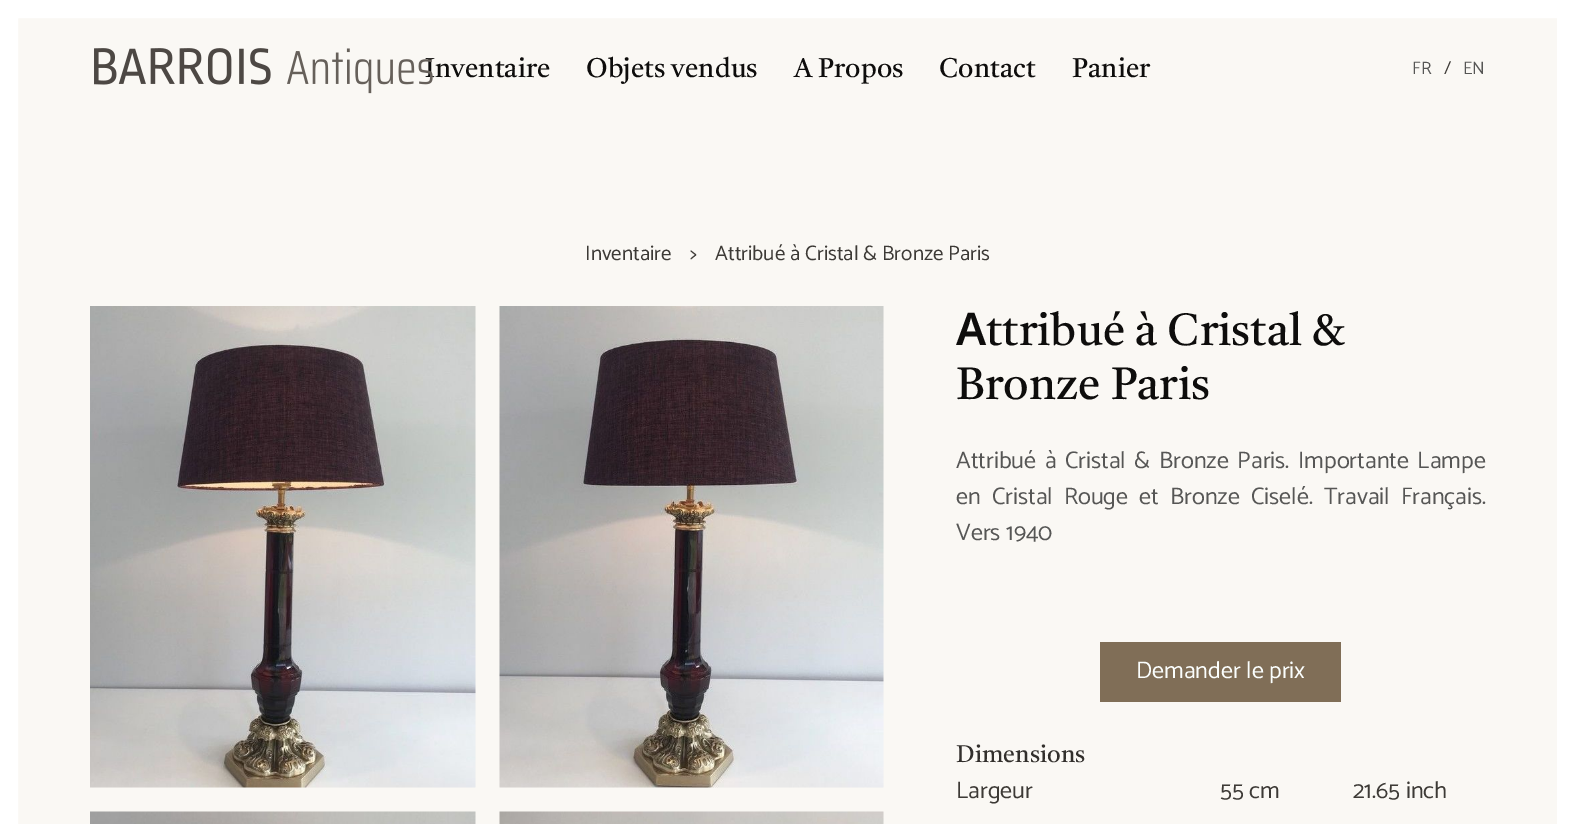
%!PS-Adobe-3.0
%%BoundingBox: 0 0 1574 824
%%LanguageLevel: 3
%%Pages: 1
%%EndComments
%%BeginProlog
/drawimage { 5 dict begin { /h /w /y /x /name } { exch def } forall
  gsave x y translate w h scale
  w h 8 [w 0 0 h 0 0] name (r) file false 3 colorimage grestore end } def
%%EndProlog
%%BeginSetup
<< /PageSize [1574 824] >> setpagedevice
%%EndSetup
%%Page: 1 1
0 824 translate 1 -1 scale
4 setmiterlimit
0.98 0.973 0.957 setrgbcolor
0 0 1574 824 rectfill
1 setgray
18 setlinewidth
9 9 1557 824 rectstroke
(images/2.raw) 90 306 386 482 drawimage
(images/3.raw) 499 306 385 482 drawimage
(images/4.raw) 90 811 386 13 drawimage
(images/5.raw) 499 811 385 13 drawimage
0.502 0.431 0.341 setrgbcolor
1100 642 241 60 rectfill
/Castoro-Regular [27 0 0 -27 0 0] selectfont
0.055 0.051 0.047 setrgbcolor
425 77 moveto (Inventaire) show
(images/1.raw) 94 48 339 46 drawimage
586 77 moveto (Objets vendus) show
794 77 moveto (A Propos) show
939 77 moveto (Contact) show
1072 77 moveto (Panier) show
/Catamaran-Thin [18 0 0 -18 0 0] selectfont
0.337 0.337 0.333 setrgbcolor
1412 74 moveto (FR) show
0.239 0.227 0.212 setrgbcolor
1444 74 moveto (/) show
0.337 0.337 0.333 setrgbcolor
1463 74 moveto (EN) show
/Catamaran-Thin [21 0 0 -21 0 0] selectfont
0.239 0.227 0.212 setrgbcolor
585 260 moveto (Inventaire) show
690 260 moveto (>) show
715 260 moveto (Attribué à Cristal & Bronze Paris) show
/NotoSans-SemiBold [45 0 0 -45 0 0] selectfont
0.055 0.051 0.047 setrgbcolor
956 345 moveto (A) show
/Castoro-Regular [45 0 0 -45 0 0] selectfont
986 345 moveto (ttribué à Cristal &) show
956 399 moveto (Bronze Paris) show
/Catamaran-Thin [24 0 0 -24 0 0] selectfont
0.337 0.337 0.333 setrgbcolor
956 468 moveto 3 0 32 (Attribué à Cristal & Bronze Paris. Importante Lampe) widthshow
956 504 moveto 5.5 0 32 (en Cristal Rouge et Bronze Ciselé. Travail Français.) widthshow
956 540 moveto (Vers 1940) show
0.984 0.996 0.992 setrgbcolor
1136 678 moveto (Demander le prix) show
/Castoro-Regular [24 0 0 -24 0 0] selectfont
0.196 0.184 0.173 setrgbcolor
956 762 moveto (Dimensions) show
/Catamaran-Thin [24 0 0 -24 0 0] selectfont
0.239 0.227 0.212 setrgbcolor
956 798 moveto (Largeur) show
1220 798 moveto (55 cm) show
1353 798 moveto (21.65 inch) show
showpage
%%EOF
